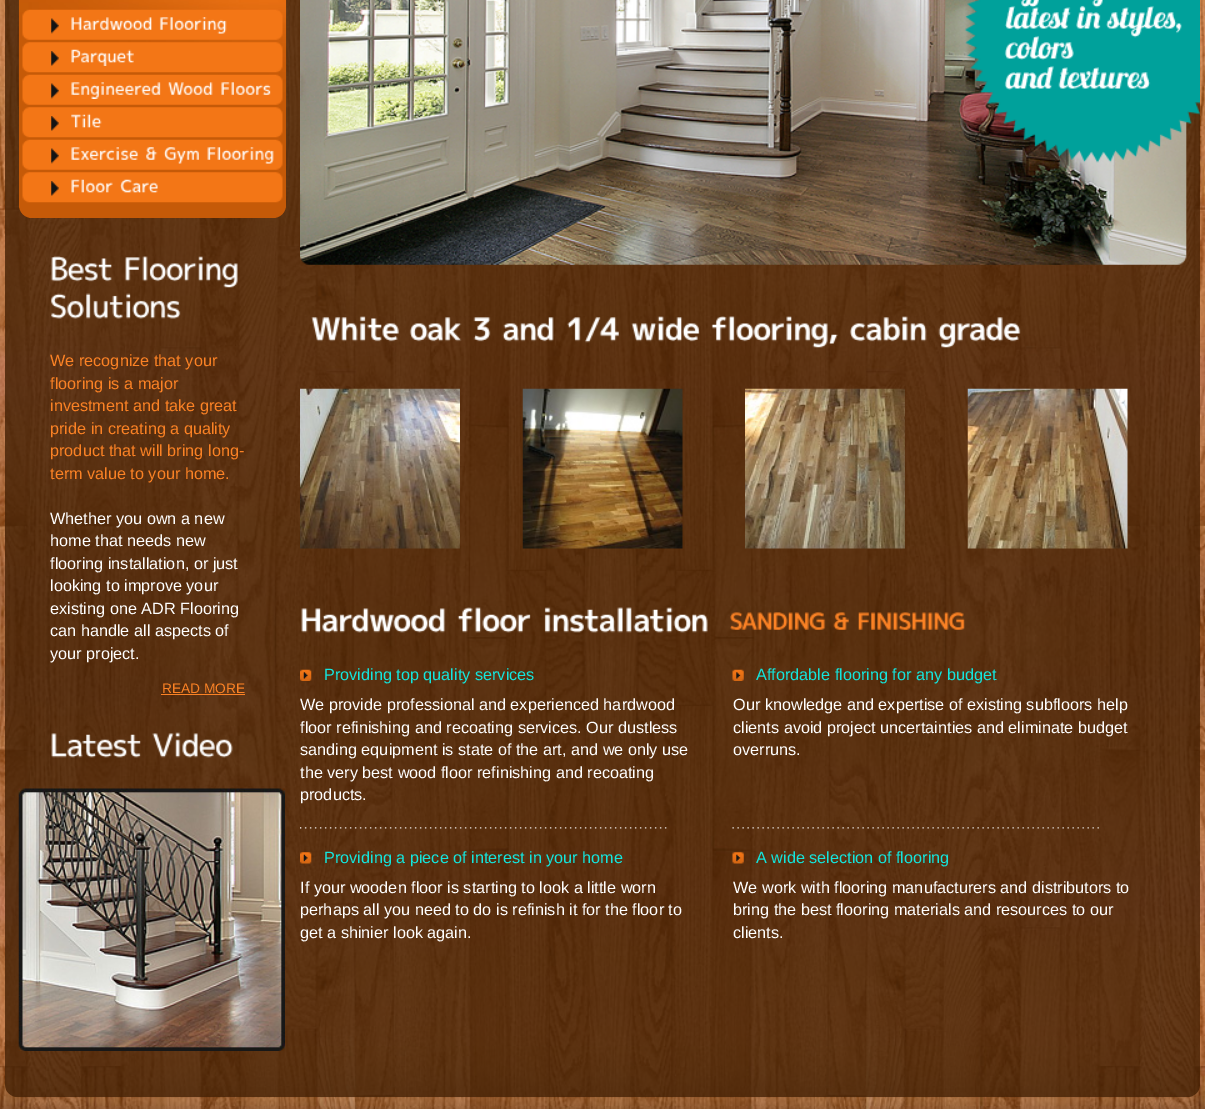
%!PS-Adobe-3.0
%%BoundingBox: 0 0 1205 1109
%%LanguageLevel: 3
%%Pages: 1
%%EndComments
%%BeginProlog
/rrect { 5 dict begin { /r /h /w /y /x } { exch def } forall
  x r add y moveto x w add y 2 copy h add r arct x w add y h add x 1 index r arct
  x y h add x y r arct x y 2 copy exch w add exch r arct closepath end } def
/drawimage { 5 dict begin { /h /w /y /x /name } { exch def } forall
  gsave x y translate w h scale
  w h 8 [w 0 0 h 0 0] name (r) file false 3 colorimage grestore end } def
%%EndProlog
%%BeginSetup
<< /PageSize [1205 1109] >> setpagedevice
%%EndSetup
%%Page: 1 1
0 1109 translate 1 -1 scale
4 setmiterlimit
1 setgray
0 0 1205 1109 rectfill
(images/1.raw) 0 0 1205 1109 drawimage
(images/2.raw) 0 0 1205 86 drawimage
(images/3.raw) 0 1018 1205 91 drawimage
(images/4.raw) 0 86 1205 933 drawimage
(images/5.raw) 5 0 1195 1098 drawimage
0.773 0.353 0.031 setrgbcolor
19 -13 267 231 13 rrect fill
(images/6.raw) 18 0 269 107 drawimage
(images/7.raw) 22 9 261 31 drawimage
(images/8.raw) 51 18 8 16 drawimage
(images/9.raw) 71 17 81 13 drawimage
(images/10.raw) 159 17 68 17 drawimage
(images/11.raw) 22 42 261 31 drawimage
(images/12.raw) 51 51 8 15 drawimage
(images/13.raw) 71 49 63 17 drawimage
(images/14.raw) 22 74 261 31 drawimage
(images/15.raw) 51 83 8 16 drawimage
(images/16.raw) 71 82 90 17 drawimage
(images/17.raw) 168 82 45 13 drawimage
(images/18.raw) 221 82 50 13 drawimage
(images/19.raw) 22 107 261 31 drawimage
(images/12.raw) 51 116 8 15 drawimage
(images/20.raw) 71 113 31 15 drawimage
(images/21.raw) 22 139 261 31 drawimage
(images/8.raw) 51 148 8 16 drawimage
(images/22.raw) 71 147 68 13 drawimage
(images/23.raw) 146 147 12 13 drawimage
(images/24.raw) 163 147 36 17 drawimage
(images/25.raw) 207 147 67 17 drawimage
(images/19.raw) 22 172 261 31 drawimage
(images/12.raw) 51 181 8 15 drawimage
(images/26.raw) 71 179 42 14 drawimage
(images/27.raw) 120 179 38 14 drawimage
(images/28.raw) 51 256 61 26 drawimage
(images/29.raw) 125 256 113 32 drawimage
(images/30.raw) 51 293 130 26 drawimage
0.984 0.51 0.145 setrgbcolor
161 694 84 1 rectfill
(images/31.raw) 51 733 90 25 drawimage
(images/32.raw) 152 732 81 26 drawimage
(images/33.raw) 18 788 267 263 drawimage
(images/34.raw) 300 0 900 265 drawimage
(images/35.raw) 311 316 88 26 drawimage
(images/36.raw) 409 317 53 25 drawimage
(images/37.raw) 473 317 18 25 drawimage
(images/38.raw) 502 317 52 25 drawimage
(images/39.raw) 567 317 52 26 drawimage
(images/40.raw) 631 316 69 26 drawimage
(images/41.raw) 711 316 127 32 drawimage
(images/42.raw) 849 316 78 26 drawimage
(images/43.raw) 938 317 83 31 drawimage
(images/44.raw) 300 388 160 161 drawimage
(images/45.raw) 522 388 161 161 drawimage
(images/46.raw) 745 388 160 161 drawimage
(images/47.raw) 967 388 161 161 drawimage
(images/48.raw) 301 608 145 25 drawimage
(images/49.raw) 457 607 74 26 drawimage
(images/50.raw) 544 607 164 26 drawimage
(images/51.raw) 730 612 96 18 drawimage
(images/52.raw) 833 612 16 18 drawimage
(images/53.raw) 858 612 107 18 drawimage
(images/54.raw) 300 827 367 2 drawimage
(images/55.raw) 300 669 12 12 drawimage
(images/56.raw) 300 852 12 12 drawimage
(images/57.raw) 732 827 367 2 drawimage
(images/58.raw) 732 669 12 12 drawimage
(images/59.raw) 732 852 12 12 drawimage
/LiberationSans-Regular [16.25 0 0 -16.25 0 0] selectfont
50 366 moveto (We recognize that your) show
50 389 moveto (flooring is a major) show
50 411 moveto (investment and take great) show
50 434 moveto (pride in creating a quality) show
50 456 moveto (product that will bring long-) show
50 479 moveto (term value to your home.) show
1 setgray
50 524 moveto (Whether you own a new) show
50 546 moveto (home that needs new) show
50 569 moveto (flooring installation, or just) show
50 591 moveto (looking to improve your) show
50 614 moveto (existing one ADR Flooring) show
50 636 moveto (can handle all aspects of) show
50 659 moveto (your project.) show
/LiberationSans-Regular [13.75 0 0 -13.75 0 0] selectfont
0.984 0.51 0.145 setrgbcolor
162 693 moveto (READ MORE) show
/LiberationSans-Regular [16.25 0 0 -16.25 0 0] selectfont
0.075 0.902 0.871 setrgbcolor
324 680 moveto (Providing top quality services) show
1 setgray
300 710 moveto (We provide professional and experienced hardwood) show
300 733 moveto (floor refinishing and recoating services. Our dustless) show
300 755 moveto (sanding equipment is state of the art, and we only use) show
300 778 moveto (the very best wood floor refinishing and recoating) show
300 800 moveto (products.) show
0.075 0.902 0.871 setrgbcolor
324 863 moveto (Providing a piece of interest in your home) show
1 setgray
300 893 moveto (If your wooden floor is starting to look a little worn) show
300 915 moveto (perhaps all you need to do is refinish it for the floor to) show
300 938 moveto (get a shinier look again.) show
0.075 0.902 0.871 setrgbcolor
756 680 moveto (Affordable flooring for any budget) show
1 setgray
733 710 moveto (Our knowledge and expertise of existing subfloors help) show
733 733 moveto (clients avoid project uncertainties and eliminate budget) show
733 755 moveto (overruns.) show
0.075 0.902 0.871 setrgbcolor
756 863 moveto (A wide selection of flooring) show
1 setgray
733 893 moveto (We work with flooring manufacturers and distributors to) show
733 915 moveto (bring the best flooring materials and resources to our) show
733 938 moveto (clients.) show
showpage
%%EOF
